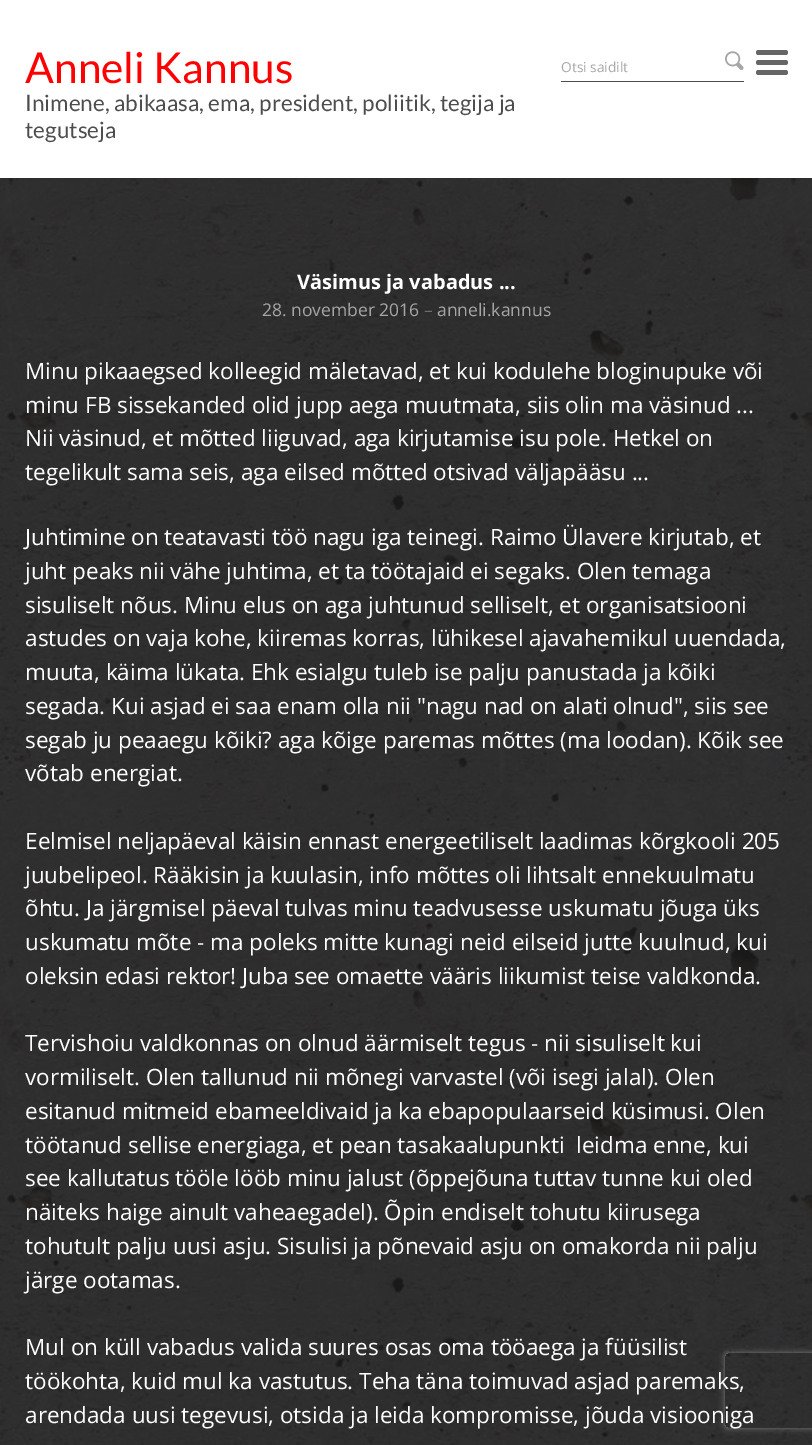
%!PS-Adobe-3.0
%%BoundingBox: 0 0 812 1445
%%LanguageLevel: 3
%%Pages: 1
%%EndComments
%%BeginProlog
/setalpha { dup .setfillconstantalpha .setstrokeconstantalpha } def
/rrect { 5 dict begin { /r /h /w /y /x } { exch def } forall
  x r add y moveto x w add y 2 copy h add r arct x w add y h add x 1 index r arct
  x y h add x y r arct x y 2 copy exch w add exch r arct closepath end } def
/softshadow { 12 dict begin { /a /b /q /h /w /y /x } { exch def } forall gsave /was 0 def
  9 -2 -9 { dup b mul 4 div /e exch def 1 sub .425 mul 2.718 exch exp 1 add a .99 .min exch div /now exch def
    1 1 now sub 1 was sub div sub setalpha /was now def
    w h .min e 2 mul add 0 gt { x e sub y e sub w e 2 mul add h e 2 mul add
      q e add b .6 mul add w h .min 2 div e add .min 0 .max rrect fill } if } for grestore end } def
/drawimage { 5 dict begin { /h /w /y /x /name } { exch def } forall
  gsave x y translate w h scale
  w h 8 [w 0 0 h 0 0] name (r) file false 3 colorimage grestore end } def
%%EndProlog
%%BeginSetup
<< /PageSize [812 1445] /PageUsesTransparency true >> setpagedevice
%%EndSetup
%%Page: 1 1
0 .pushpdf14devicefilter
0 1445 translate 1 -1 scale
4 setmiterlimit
1 setgray
0 0 812 1445 rectfill
(images/1.raw) 0 178 812 1267 drawimage
0.4 setgray
756 50 32 5 2.5 rrect fill
756 60 32 5 2.5 rrect fill
756 70 32 5 2.5 rrect fill
0.302 setgray
561 81 183 1 rectfill
(images/2.raw) 725 51 19 19 drawimage
gsave
newpath 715 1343 moveto 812 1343 lineto 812 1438 lineto 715 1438 lineto closepath 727.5 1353 moveto 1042.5 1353 lineto 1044 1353 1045 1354 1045 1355.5 curveto 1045 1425.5 lineto 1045 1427 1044 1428 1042.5 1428 curveto 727.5 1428 lineto 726 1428 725 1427 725 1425.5 curveto 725 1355.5 lineto 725 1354 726 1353 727.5 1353 curveto closepath eoclip newpath
0.502 setgray
725 1353 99 75 2.5 3 1 softshadow
grestore
/Lato-Regular [42.5 0 0 -42.5 0 0] selectfont
1 0 0 setrgbcolor
25 83 moveto (Anneli Kannus) show
/Lato-Regular [22.5 0 0 -22.5 0 0] selectfont
0.302 setgray
25 111 moveto (Inimene, abikaasa, ema, president, poliitik, tegija ja) show
25 138 moveto (tegutseja) show
/OpenSans-Regular [13.75 0 0 -13.75 0 0] selectfont
0.651 setgray
561 72 moveto (Otsi saidilt) show
/OpenSans-Bold [20 0 0 -20 0 0] selectfont
1 setgray
297 289 moveto (Väsimus ja vabadus ...) show
/OpenSans-Regular [17.5 0 0 -17.5 0 0] selectfont
0.651 setgray
262 316 moveto (28. november 2016) show
0.42 setgray
424 316 moveto (–) show
0.651 setgray
437 316 moveto (anneli.kannus) show
/OpenSans-Regular [22.5 0 0 -22.5 0 0] selectfont
1 setgray
25 379 moveto (Minu pikaaegsed kolleegid mäletavad, et kui kodulehe bloginupuke või) show
25 413 moveto (minu FB sissekanded olid jupp aega muutmata, siis olin ma väsinud ...) show
25 446 moveto (Nii väsinud, et mõtted liiguvad, aga kirjutamise isu pole. Hetkel on) show
25 480 moveto (tegelikult sama seis, aga eilsed mõtted otsivad väljapääsu ...) show
25 545 moveto (Juhtimine on teatavasti töö nagu iga teinegi. Raimo Ülavere kirjutab, et) show
25 579 moveto (juht peaks nii vähe juhtima, et ta töötajaid ei segaks. Olen temaga) show
25 613 moveto (sisuliselt nõus. Minu elus on aga juhtunud selliselt, et organisatsiooni) show
25 646 moveto (astudes on vaja kohe, kiiremas korras, lühikesel ajavahemikul uuendada,) show
25 680 moveto (muuta, käima lükata. Ehk esialgu tuleb ise palju panustada ja kõiki) show
25 714 moveto (segada. Kui asjad ei saa enam olla nii "nagu nad on alati olnud", siis see) show
25 748 moveto (segab ju peaaegu kõiki? aga kõige paremas mõttes \(ma loodan\). Kõik see) show
25 781 moveto (võtab energiat.) show
25 849 moveto (Eelmisel neljapäeval käisin ennast energeetiliselt laadimas kõrgkooli 205) show
25 883 moveto (juubelipeol. Rääkisin ja kuulasin, info mõttes oli lihtsalt ennekuulmatu) show
25 916 moveto (õhtu. Ja järgmisel päeval tulvas minu teadvusesse uskumatu jõuga üks) show
25 950 moveto (uskumatu mõte - ma poleks mitte kunagi neid eilseid jutte kuulnud, kui) show
25 984 moveto (oleksin edasi rektor! Juba see omaette vääris liikumist teise valdkonda.) show
25 1051 moveto (Tervishoiu valdkonnas on olnud äärmiselt tegus - nii sisuliselt kui) show
25 1085 moveto (vormiliselt. Olen tallunud nii mõnegi varvastel \(või isegi jalal\). Olen) show
25 1119 moveto (esitanud mitmeid ebameeldivaid ja ka ebapopulaarseid küsimusi. Olen) show
25 1153 moveto (töötanud sellise energiaga, et pean tasakaalupunkti  leidma enne, kui) show
25 1186 moveto (see kallutatus tööle lööb minu jalust \(õppejõuna tuttav tunne kui oled) show
25 1220 moveto (näiteks haige ainult vaheaegadel\). Õpin endiselt tohutu kiirusega) show
25 1254 moveto (tohutult palju uusi asju. Sisulisi ja põnevaid asju on omakorda nii palju) show
25 1288 moveto (järge ootamas.) show
25 1355 moveto (Mul on küll vabadus valida suures osas oma tööaega ja füüsilist) show
25 1389 moveto (töökohta, kuid mul ka vastutus. Teha täna toimuvad asjad paremaks,) show
25 1423 moveto (arendada uusi tegevusi, otsida ja leida kompromisse, jõuda visiooniga) show
.poppdf14devicefilter showpage
%%EOF
